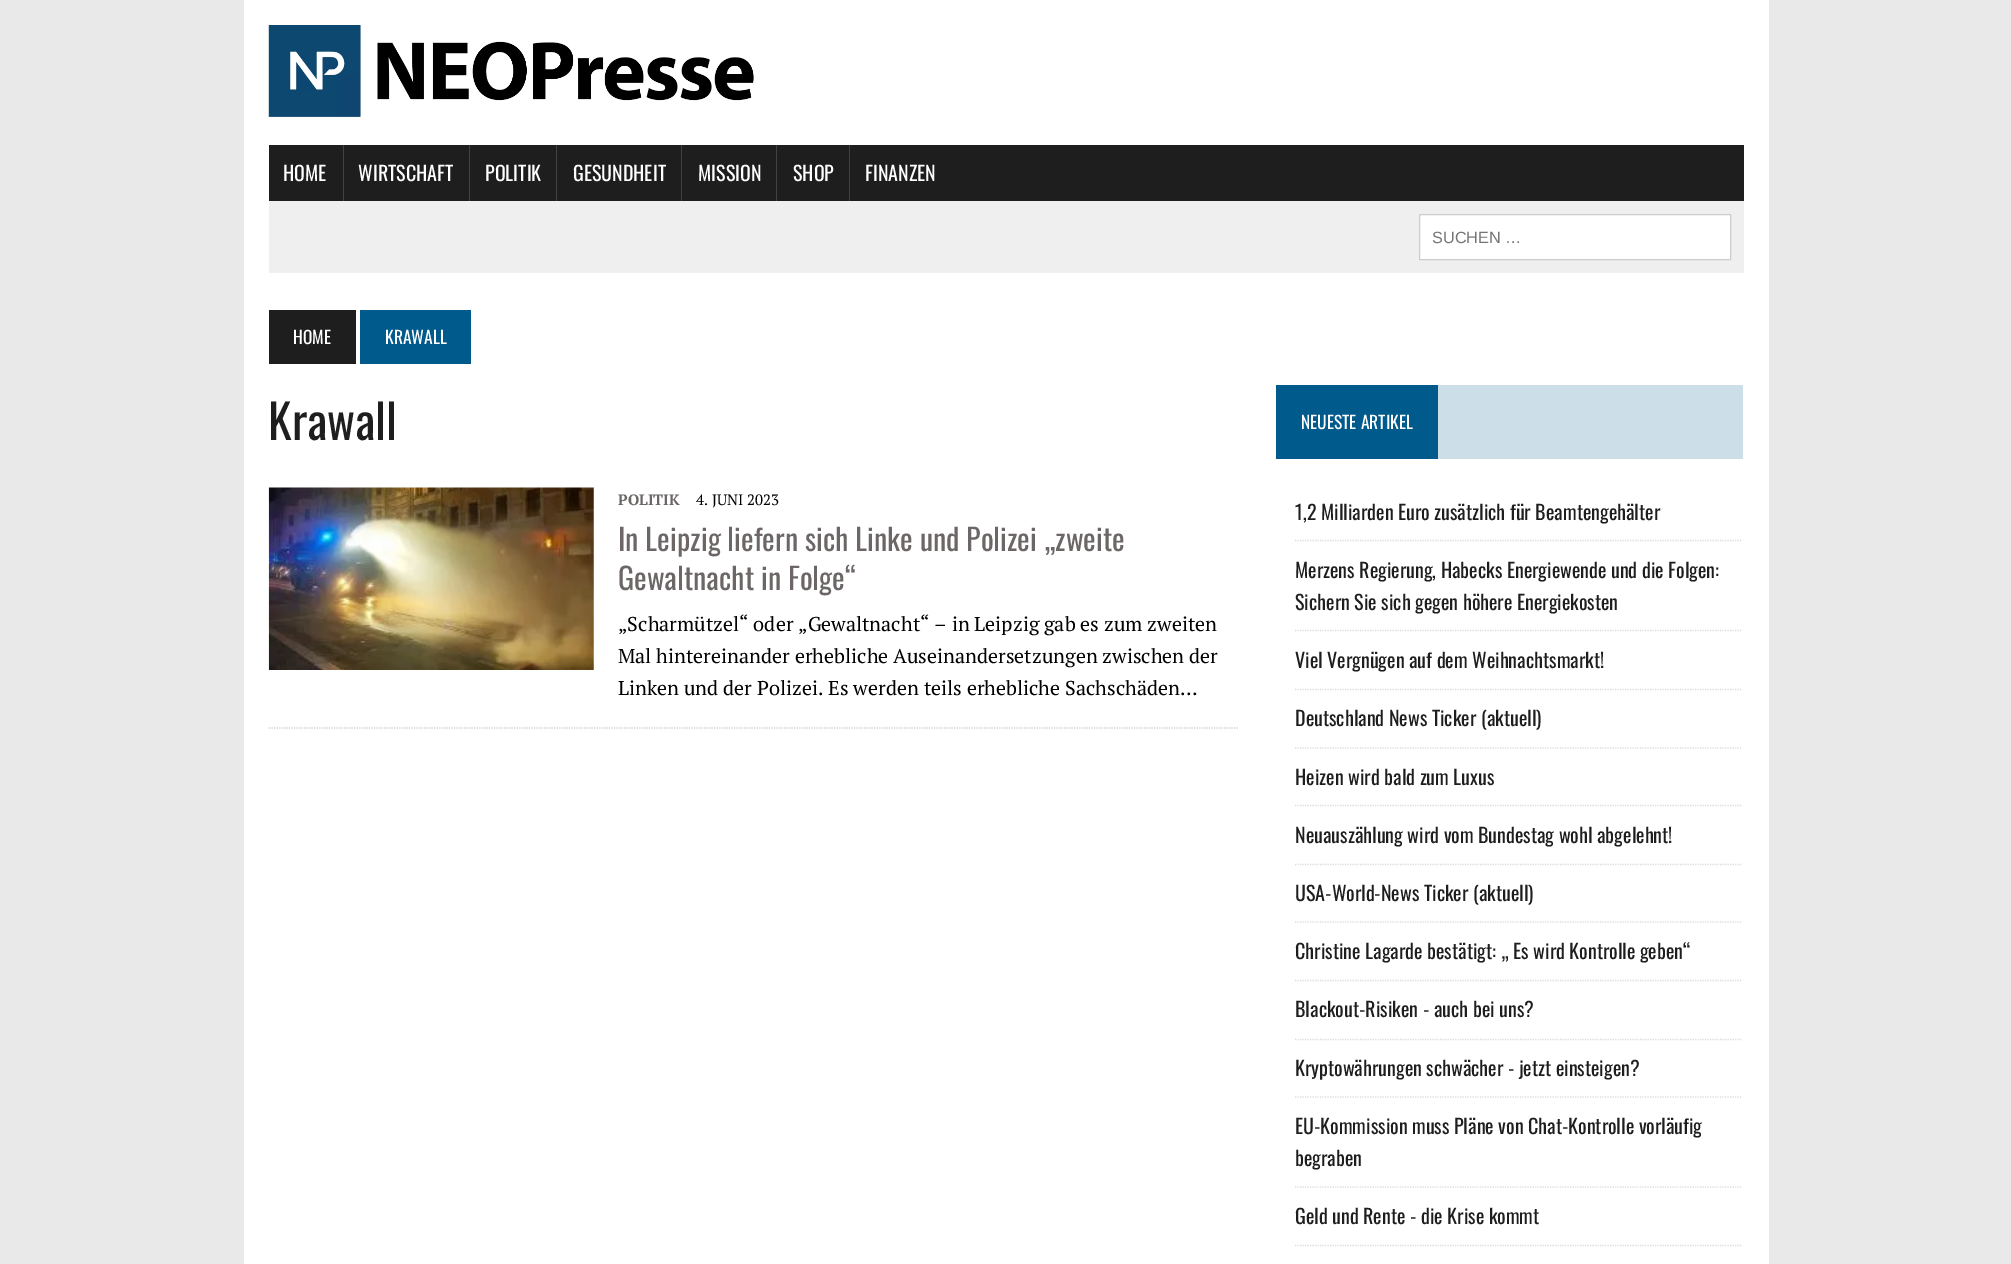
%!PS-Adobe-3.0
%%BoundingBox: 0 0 2011 1264
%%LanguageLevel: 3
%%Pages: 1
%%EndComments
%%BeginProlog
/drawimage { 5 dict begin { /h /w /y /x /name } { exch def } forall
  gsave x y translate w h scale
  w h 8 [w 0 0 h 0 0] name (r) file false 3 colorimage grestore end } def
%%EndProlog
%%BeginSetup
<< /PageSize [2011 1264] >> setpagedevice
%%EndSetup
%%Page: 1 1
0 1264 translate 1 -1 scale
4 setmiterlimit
0.914 setgray
0 0 2011 1264 rectfill
1 setgray
244 0 1525 1264 rectfill
(images/1.raw) 268 25 486 92 drawimage
0.122 0.118 0.118 setrgbcolor
269 145 1475 56 rectfill
0.259 setgray
343 145 1 56 rectfill
469 145 1 56 rectfill
556 145 1 56 rectfill
681 145 1 56 rectfill
776 145 1 56 rectfill
849 145 1 56 rectfill
0.937 setgray
269 201 1475 72 rectfill
1 setgray
newpath 1419.5 214.5 moveto 1730.5 214.5 lineto 1730.5 259.5 lineto 1419.5 259.5 lineto closepath gsave fill grestore
0.804 setgray
stroke
0.122 0.118 0.118 setrgbcolor
269 310 87 54 rectfill
0 0.353 0.549 setrgbcolor
360 310 111 54 rectfill
(images/2.raw) 268 487 326 183 drawimage
0.804 setgray
1.2 setlinewidth
[1.25 1.25] 0 setdash
newpath 269 728 moveto 1239 728 lineto stroke
0.8 0.871 0.91 setrgbcolor
1438 385 305 74 rectfill
0 0.353 0.549 setrgbcolor
1276 385 162 74 rectfill
0.863 setgray
newpath 1295 540.5 moveto 1742.5 540.5 lineto stroke
newpath 1295 630.5 moveto 1742.5 630.5 lineto stroke
newpath 1295 689.5 moveto 1742.5 689.5 lineto stroke
newpath 1295 748 moveto 1742.5 748 lineto stroke
newpath 1295 805.5 moveto 1742.5 805.5 lineto stroke
newpath 1295 864.5 moveto 1742.5 864.5 lineto stroke
newpath 1295 922 moveto 1742.5 922 lineto stroke
newpath 1295 980.5 moveto 1742.5 980.5 lineto stroke
newpath 1295 1039.5 moveto 1742.5 1039.5 lineto stroke
newpath 1295 1097 moveto 1742.5 1097 lineto stroke
newpath 1295 1187 moveto 1742.5 1187 lineto stroke
newpath 1295 1245.5 moveto 1742.5 1245.5 lineto stroke
/Oswald-Regular [20 0 0 -20 0 0] selectfont
1 setgray
283 181 moveto (HOME) show
358 181 moveto (WIRTSCHAFT) show
485 181 moveto (POLITIK) show
573 181 moveto (GESUNDHEIT) show
698 181 moveto (MISSION) show
793 181 moveto (SHOP) show
865 181 moveto (FINANZEN) show
/LiberationSans-Regular [16.25 0 0 -16.25 0 0] selectfont
0.459 setgray
1432 243 moveto (SUCHEN …) show
/Oswald-Regular [17.5 0 0 -17.5 0 0] selectfont
1 setgray
293 344 moveto (HOME) show
385 344 moveto (KRAWALL) show
/Oswald-Regular [47.5 0 0 -47.5 0 0] selectfont
0.122 0.118 0.118 setrgbcolor
268 440 moveto (Krawall) show
/PTSerif-Bold [15 0 0 -15 0 0] selectfont
0.424 0.404 0.4 setrgbcolor
618 505 moveto (POLITIK) show
/PTSerif-Regular [15 0 0 -15 0 0] selectfont
0 setgray
696 505 moveto (4. JUNI 2023) show
/Oswald-Regular [30 0 0 -30 0 0] selectfont
0.424 0.404 0.4 setrgbcolor
618 551 moveto (In Leipzig liefern sich Linke und Polizei „zweite) show
618 590 moveto (Gewaltnacht in Folge“) show
/PTSerif-Regular [20 0 0 -20 0 0] selectfont
0 setgray
618 631 moveto („Scharmützel“ oder „Gewaltnacht“ – in Leipzig gab es zum zweiten) show
618 663 moveto (Mal hintereinander erhebliche Auseinandersetzungen zwischen der) show
618 695 moveto (Linken und der Polizei. Es werden teils erhebliche Sachschäden…) show
/Oswald-Regular [17.5 0 0 -17.5 0 0] selectfont
1 setgray
1301 429 moveto (NEUESTE ARTIKEL) show
/Oswald-Regular [20 0 0 -20 0 0] selectfont
0.122 0.118 0.118 setrgbcolor
1295 520 moveto (1,2 Milliarden Euro zusätzlich für Beamtengehälter) show
1295 578 moveto (Merzens Regierung, Habecks Energiewende und die Folgen:) show
1295 610 moveto (Sichern Sie sich gegen höhere Energiekosten) show
1295 668 moveto (Viel Vergnügen auf dem Weihnachtsmarkt!) show
1295 726 moveto (Deutschland News Ticker \(aktuell\)) show
1295 785 moveto (Heizen wird bald zum Luxus) show
1295 843 moveto (Neuauszählung wird vom Bundestag wohl abgelehnt!) show
1295 901 moveto (USA-World-News Ticker \(aktuell\)) show
1295 959 moveto (Christine Lagarde bestätigt: „ Es wird Kontrolle geben“) show
1295 1017 moveto (Blackout-Risiken - auch bei uns?) show
1295 1076 moveto (Kryptowährungen schwächer - jetzt einsteigen?) show
1295 1134 moveto (EU-Kommission muss Pläne von Chat-Kontrolle vorläufig) show
1295 1166 moveto (begraben) show
1295 1224 moveto (Geld und Rente - die Krise kommt) show
showpage
%%EOF
